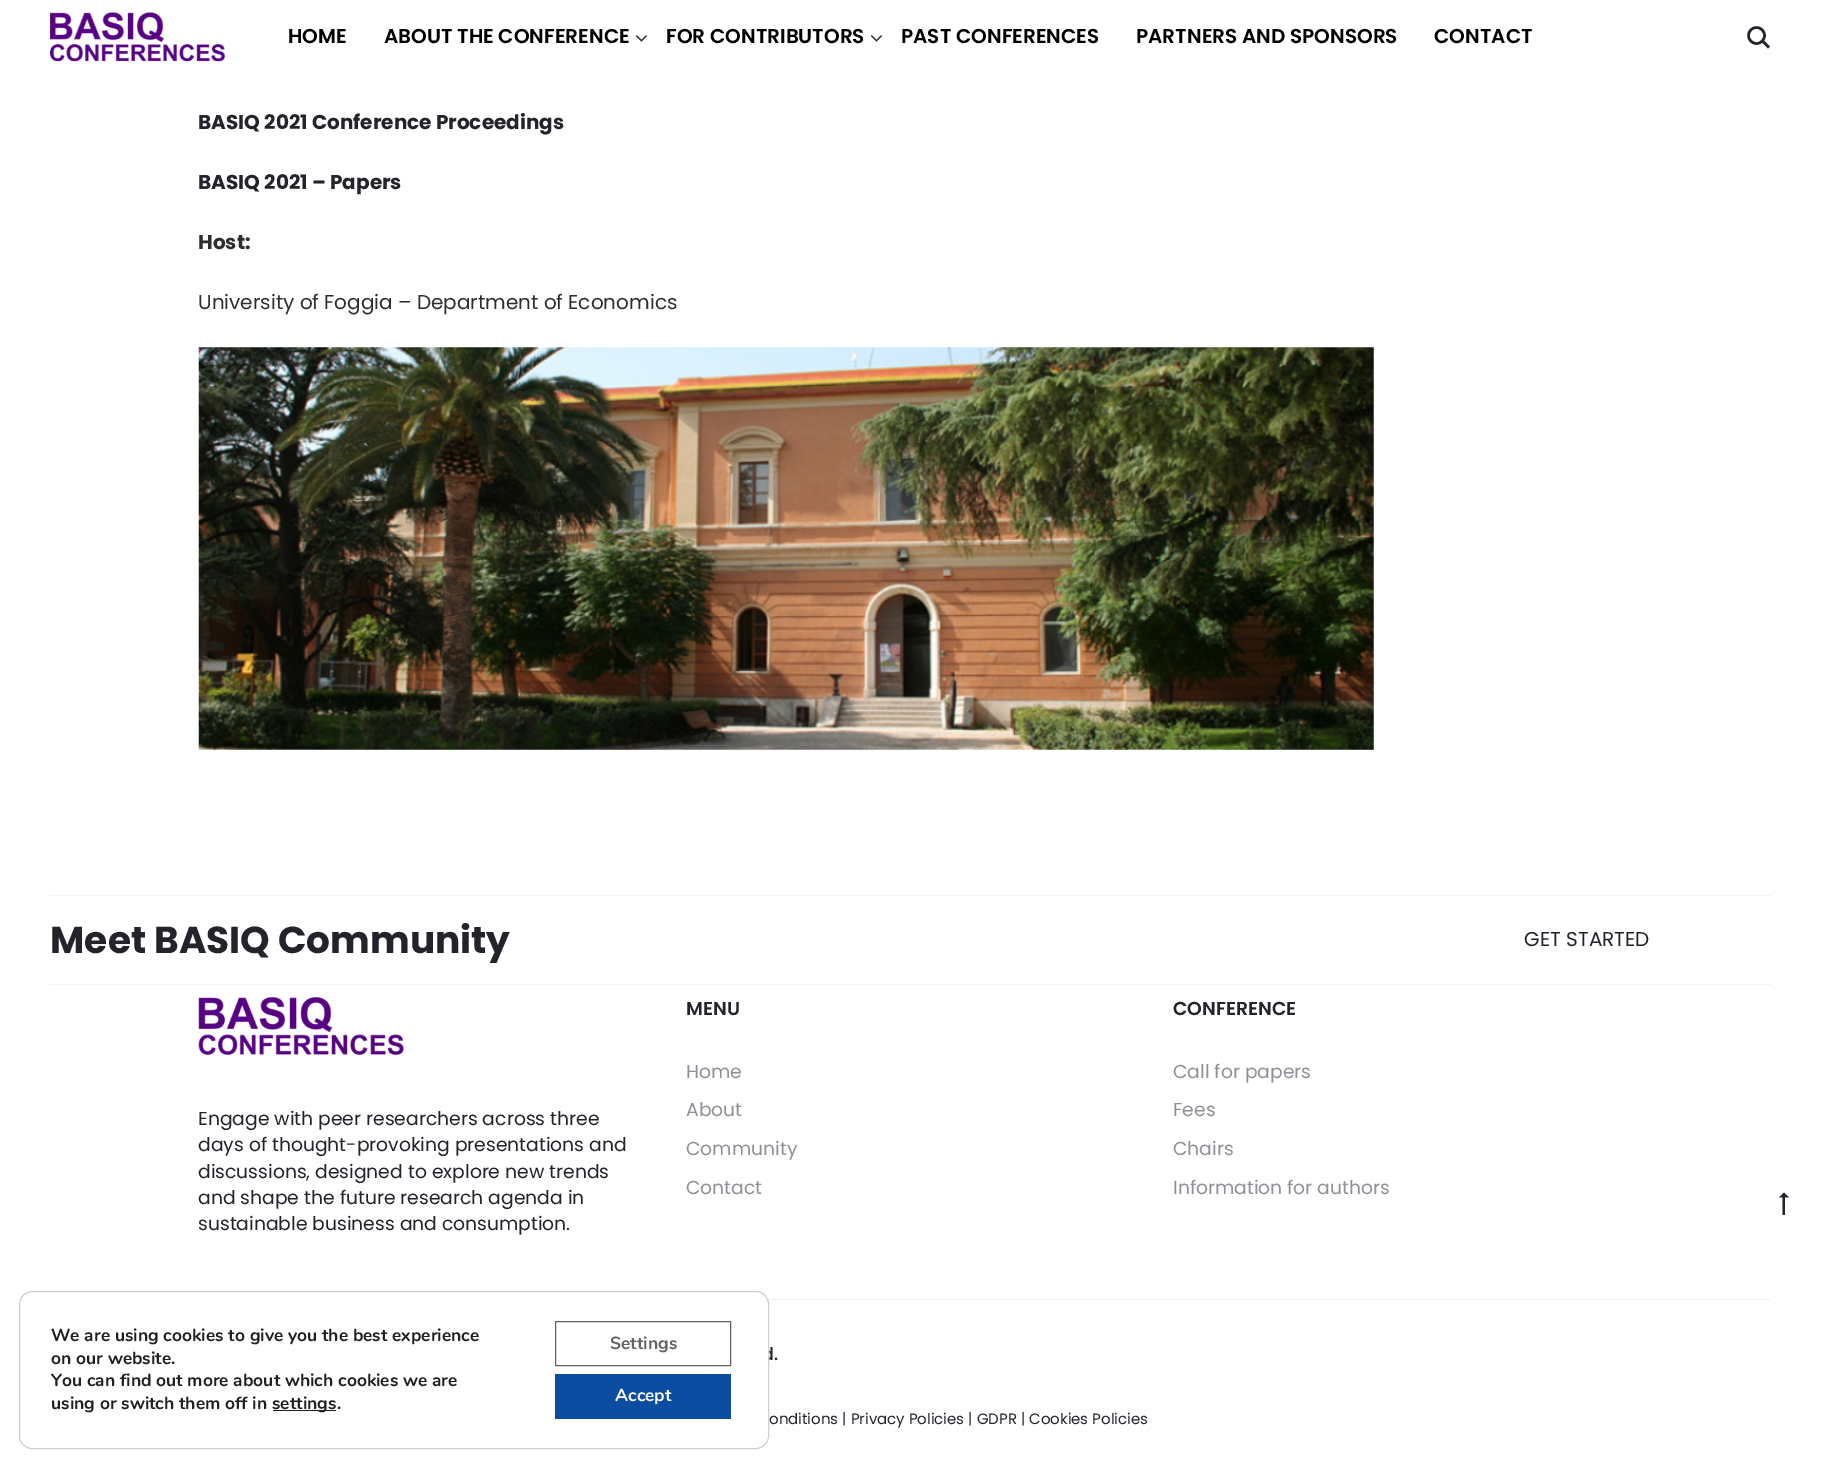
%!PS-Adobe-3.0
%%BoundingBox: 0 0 1821 1467
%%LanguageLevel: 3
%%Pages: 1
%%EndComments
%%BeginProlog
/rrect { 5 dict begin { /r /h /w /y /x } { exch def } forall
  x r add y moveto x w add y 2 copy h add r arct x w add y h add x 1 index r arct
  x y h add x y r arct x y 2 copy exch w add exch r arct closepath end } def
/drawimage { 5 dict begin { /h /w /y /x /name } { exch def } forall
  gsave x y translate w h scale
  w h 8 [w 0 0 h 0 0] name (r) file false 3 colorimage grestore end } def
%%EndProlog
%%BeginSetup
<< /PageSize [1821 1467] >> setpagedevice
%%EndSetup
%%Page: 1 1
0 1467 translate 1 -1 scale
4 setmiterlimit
1 setgray
0 0 1821 1467 rectfill
(images/1.raw) 50 12 175 50 drawimage
(images/2.raw) 635 35 12 7 drawimage
(images/2.raw) 870 35 12 7 drawimage
0.137 0.137 0.173 setrgbcolor
2.5 setlinewidth
newpath 1756.5 35.5 8 0 360 arc closepath stroke
newpath 1762.5 41 moveto 1769 47.5 lineto stroke
(images/3.raw) 198 347 1176 403 drawimage
0.945 0.949 0.957 setrgbcolor
50 895 1721 1 rectfill
50 984 1721 1 rectfill
(images/4.raw) 198 997 206 58 drawimage
768 1299 1003 1 rectfill
0.137 0.137 0.173 setrgbcolor
newpath 1782.5 1197.5 moveto 1782.5 1215 lineto 1785 1215 lineto 1785 1197.5 lineto 1789 1197.5 lineto 1784 1192.5 lineto 1779 1197.5 lineto closepath fill
/Poppins-SemiBold [20 0 0 -20 0 0] selectfont
0 setgray
288 43 moveto (HOME) show
384 43 moveto (ABOUT THE CONFERENCE) show
666 43 moveto (FOR CONTRIBUTORS) show
901 43 moveto (PAST CONFERENCES) show
1136 43 moveto (PARTNERS AND SPONSORS) show
1434 43 moveto (CONTACT) show
/Poppins-Bold [20 0 0 -20 0 0] selectfont
0.137 0.137 0.173 setrgbcolor
198 129 moveto (BASIQ 2021 Conference Proceedings) show
198 189 moveto (BASIQ 2021 – Papers) show
0.18 setgray
198 249 moveto (Host:) show
/Poppins-Regular [20 0 0 -20 0 0] selectfont
198 309 moveto (University of Foggia – Department of Economics) show
/Poppins-Bold [37.5 0 0 -37.5 0 0] selectfont
0.137 0.137 0.173 setrgbcolor
50 953 moveto (Meet BASIQ Community) show
/Poppins-Regular [20 0 0 -20 0 0] selectfont
1524 946 moveto (GET STARTED) show
/Poppins-Regular [18.75 0 0 -18.75 0 0] selectfont
198 1125 moveto (Engage with peer researchers across three) show
198 1151 moveto (days of thought-provoking presentations and) show
198 1178 moveto (discussions, designed to explore new trends) show
198 1204 moveto (and shape the future research agenda in) show
198 1230 moveto (sustainable business and consumption.) show
/Poppins-SemiBold [18.75 0 0 -18.75 0 0] selectfont
686 1015 moveto (MENU) show
/Poppins-Regular [18.75 0 0 -18.75 0 0] selectfont
0.565 0.565 0.592 setrgbcolor
686 1078 moveto (Home) show
686 1116 moveto (About) show
686 1155 moveto (Community) show
686 1194 moveto (Contact) show
/Poppins-SemiBold [18.75 0 0 -18.75 0 0] selectfont
0.137 0.137 0.173 setrgbcolor
1173 1015 moveto (CONFERENCE) show
/Poppins-Regular [18.75 0 0 -18.75 0 0] selectfont
0.565 0.565 0.592 setrgbcolor
1173 1078 moveto (Call for papers) show
1173 1116 moveto (Fees) show
1173 1155 moveto (Chairs) show
1173 1194 moveto (Information for authors) show
/Poppins-Medium [17.5 0 0 -17.5 0 0] selectfont
0.137 0.137 0.173 setrgbcolor
762 1360 moveto (d.) show
/Poppins-Regular [15 0 0 -15 0 0] selectfont
769 1424 moveto (onditions | Privacy Policies | GDPR | Cookies Policies) show
1 setgray
19.5 1291.5 749 157 12.5 rrect gsave fill grestore
0.827 0.808 0.824 setrgbcolor
1 setlinewidth
stroke
/Nunito-Bold [17.5 0 0 -17.5 0 0] selectfont
0.125 setgray
51 1341 moveto (We are using cookies to give you the best experience) show
51 1364 moveto (on our website.) show
51 1386 moveto (You can find out more about which cookies we are) show
51 1409 moveto (using or switch them off in) show
273 1410 63 1 rectfill
272 1409 moveto (settings) show
337 1409 moveto (.) show
0.388 setgray
555.5 1321.5 175 44 rectstroke
610 1349 moveto (Settings) show
0.047 0.302 0.635 setrgbcolor
555 1374 176 45 rectfill
1 setgray
615 1401 moveto (Accept) show
showpage
%%EOF
